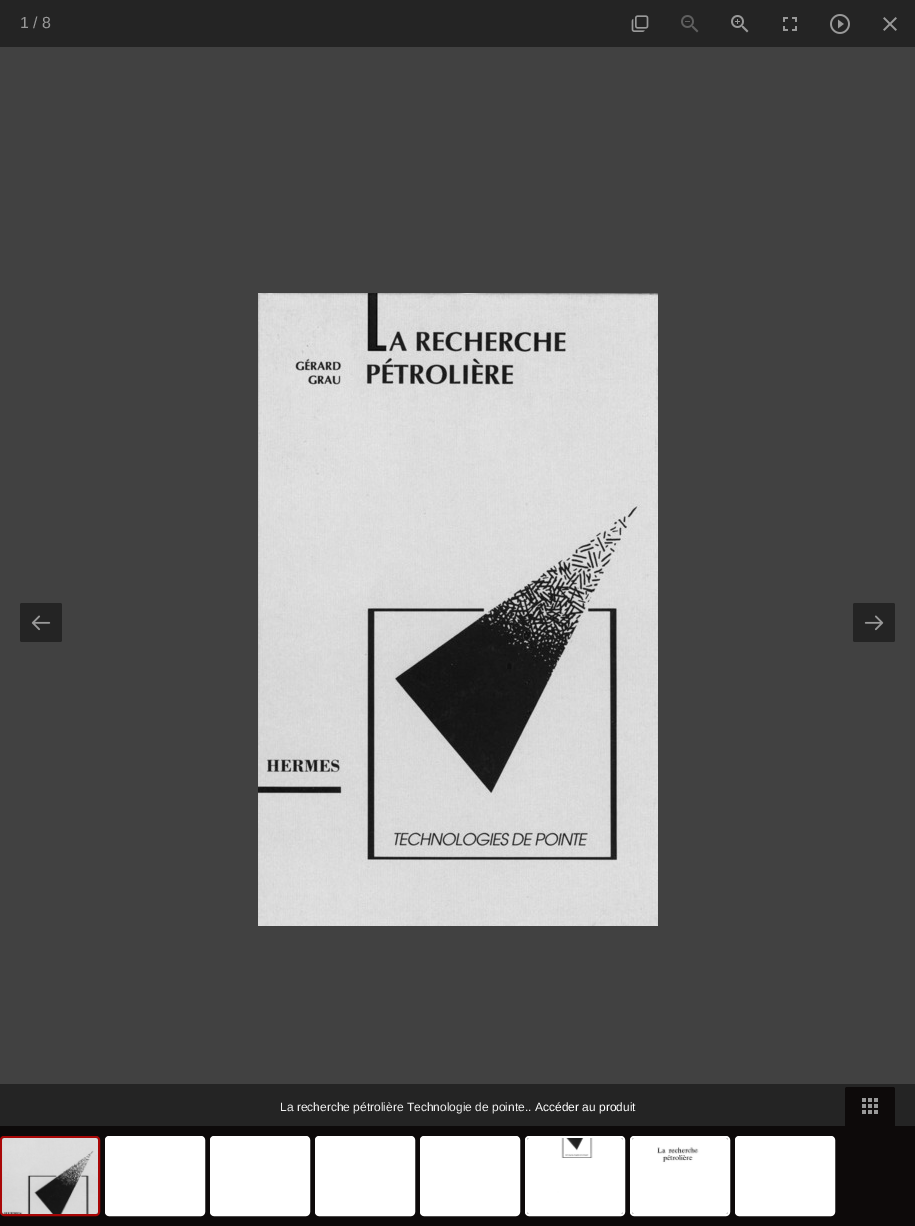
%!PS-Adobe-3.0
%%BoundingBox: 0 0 915 1226
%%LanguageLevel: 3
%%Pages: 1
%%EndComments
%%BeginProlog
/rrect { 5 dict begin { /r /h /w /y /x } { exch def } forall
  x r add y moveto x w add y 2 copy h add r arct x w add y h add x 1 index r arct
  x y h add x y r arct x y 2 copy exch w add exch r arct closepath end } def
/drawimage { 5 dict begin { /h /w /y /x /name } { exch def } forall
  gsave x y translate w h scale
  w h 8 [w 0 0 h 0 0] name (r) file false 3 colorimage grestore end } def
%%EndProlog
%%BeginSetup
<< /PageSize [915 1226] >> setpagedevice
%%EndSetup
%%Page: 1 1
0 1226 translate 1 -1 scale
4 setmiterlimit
0.255 setgray
0 0 915 1226 rectfill
0.141 setgray
0 0 915 47 rectfill
(images/1.raw) 631 15 18 17 drawimage
(images/2.raw) 681 15 18 18 drawimage
(images/3.raw) 731 15 18 18 drawimage
(images/4.raw) 783 17 14 14 drawimage
(images/5.raw) 830 14 20 20 drawimage
(images/6.raw) 883 17 14 14 drawimage
(images/7.raw) 258 293 400 633 drawimage
20 603 42 39 2 rrect fill
(images/8.raw) 31 615 20 16 drawimage
853 603 42 39 2 rrect fill
(images/9.raw) 864 615 20 16 drawimage
0.051 0.039 0.039 setrgbcolor
0 1126 915 100 rectfill
0.141 setgray
0 1084 915 42 rectfill
0.051 0.039 0.039 setrgbcolor
newpath 847 1087 moveto 893 1087 lineto 894 1087 895 1088 895 1089 curveto 895 1126 lineto 845 1126 lineto 845 1089 lineto 845 1088 846 1087 847 1087 curveto closepath fill
(images/10.raw) 862 1098 16 16 drawimage
0.663 0.027 0.027 setrgbcolor
2 setlinewidth
1 1137 98 78 3 rrect stroke
(images/11.raw) 2 1138 96 76 drawimage
1 setgray
106 1137 98 78 3 rrect stroke
107 1138 96 76 rectfill
211 1137 98 78 3 rrect stroke
212 1138 96 76 rectfill
316 1137 98 78 3 rrect stroke
317 1138 96 76 rectfill
421 1137 98 78 3 rrect stroke
422 1138 96 76 rectfill
526 1137 98 78 3 rrect stroke
(images/12.raw) 527 1138 96 76 drawimage
631 1137 98 78 3 rrect stroke
(images/13.raw) 632 1138 96 76 drawimage
736 1137 98 78 3 rrect stroke
737 1138 96 76 rectfill
/LiberationSans-Regular [16 0 0 -16 0 0] selectfont
0.6 setgray
20 28 moveto (1 / 8) show
/LiberationSans-Regular [12 0 0 -12 0 0] selectfont
0.933 setgray
280 1111 moveto (La recherche pétrolière Technologie de pointe..) show
1 setgray
535 1111 moveto (Accéder au produit) show
showpage
%%EOF
